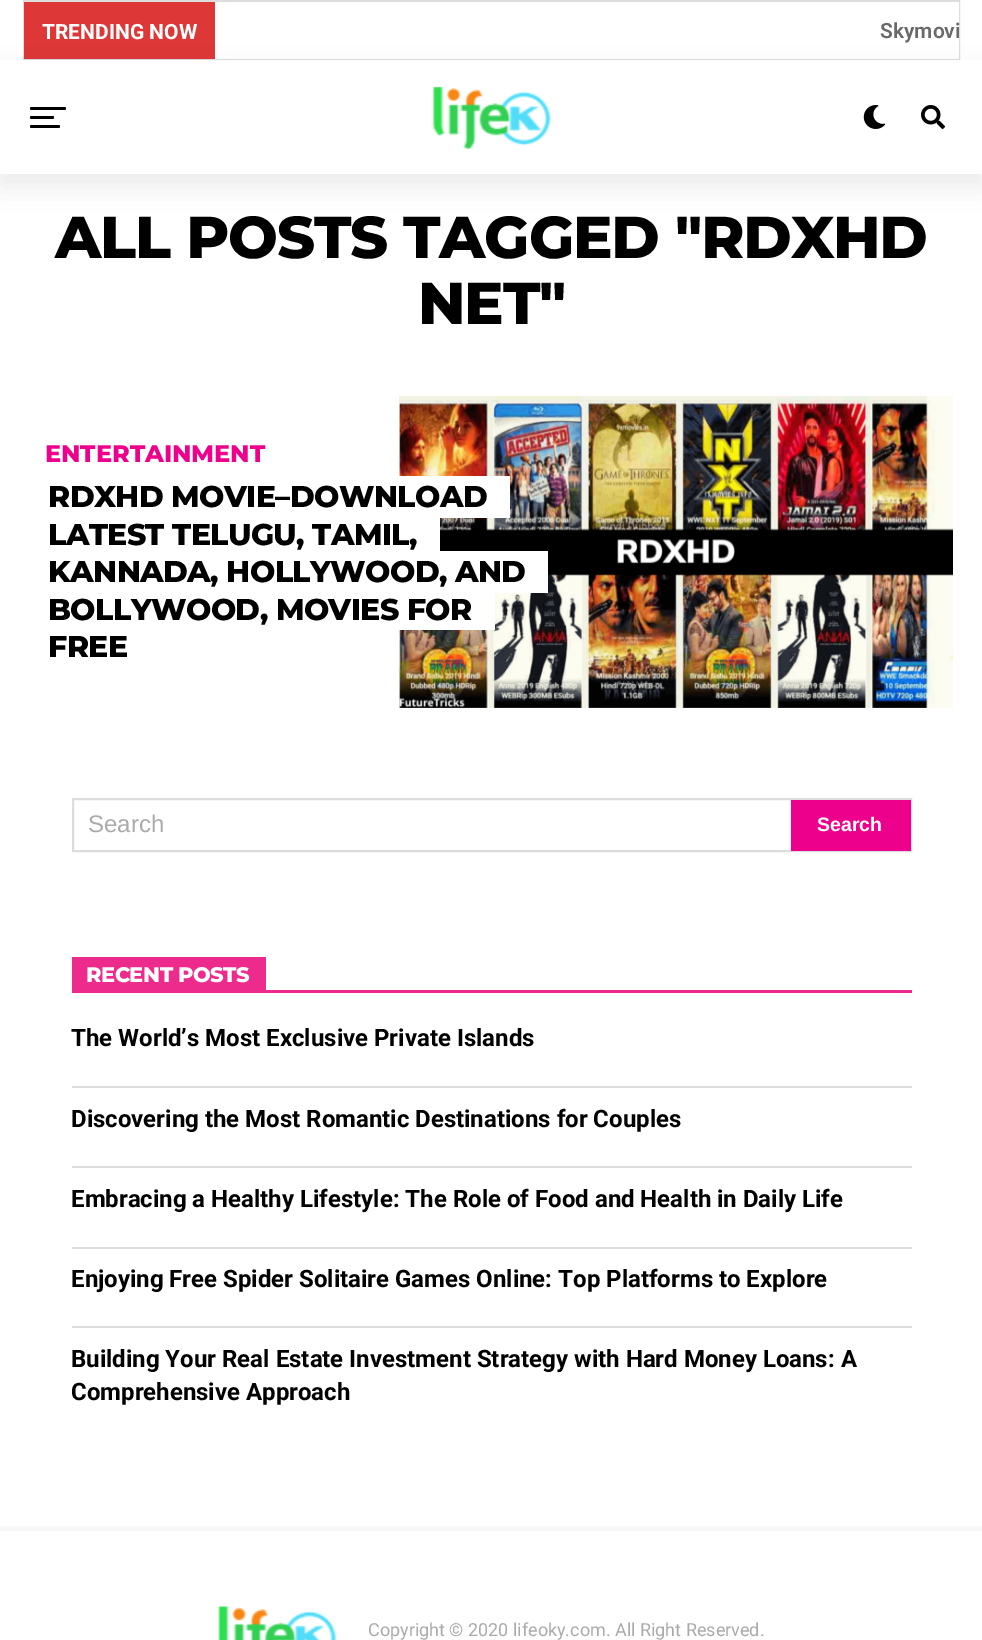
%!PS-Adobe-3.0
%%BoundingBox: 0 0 982 1640
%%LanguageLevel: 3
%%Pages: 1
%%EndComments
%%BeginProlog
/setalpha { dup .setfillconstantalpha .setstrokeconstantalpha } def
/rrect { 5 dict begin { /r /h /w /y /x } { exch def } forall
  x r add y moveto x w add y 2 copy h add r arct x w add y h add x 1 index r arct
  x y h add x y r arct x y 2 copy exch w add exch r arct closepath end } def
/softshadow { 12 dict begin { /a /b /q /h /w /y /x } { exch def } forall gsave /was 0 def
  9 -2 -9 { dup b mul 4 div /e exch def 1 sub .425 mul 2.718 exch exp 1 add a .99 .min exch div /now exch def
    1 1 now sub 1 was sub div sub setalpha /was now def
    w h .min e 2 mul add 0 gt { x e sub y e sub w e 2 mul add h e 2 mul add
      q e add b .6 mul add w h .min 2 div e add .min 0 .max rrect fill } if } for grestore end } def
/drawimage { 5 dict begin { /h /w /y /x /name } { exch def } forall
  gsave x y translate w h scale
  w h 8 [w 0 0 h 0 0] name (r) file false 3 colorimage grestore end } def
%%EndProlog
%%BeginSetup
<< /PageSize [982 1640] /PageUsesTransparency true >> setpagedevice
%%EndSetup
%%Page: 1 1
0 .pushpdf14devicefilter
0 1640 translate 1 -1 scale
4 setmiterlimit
1 setgray
0 0 982 1640 rectfill
0.867 setgray
2 setlinewidth
24 1 935 58 rectstroke
0.867 0.216 0.216 setrgbcolor
24 2 191 57 rectfill
1 setgray
215 2 744 57 rectfill
0.082 0.082 0.118 setrgbcolor
0 72 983 114 0 12 0.08 softshadow
1 setgray
0 60 982 114 rectfill
0 setgray
30 107 36 3 1.5 rrect fill
30 116 24 3 1.5 rrect fill
30 125 30 3 1.5 rrect fill
(images/1.raw) 432 86 120 63 drawimage
(images/2.raw) 863 105 23 24 drawimage
(images/3.raw) 921 105 24 24 drawimage
(images/4.raw) 399 396 554 312 drawimage
1 setgray
newpath 68 518 moveto 510 518 lineto 510 476 lineto 488 476 lineto 488 518 lineto closepath fill
399 476 89 42 rectfill
399 518 41 33 rectfill
newpath 33 551 moveto 33 593 lineto 510 593 lineto 510 592 lineto 48 592 lineto 48 551 lineto closepath fill
newpath 71 592 moveto 71 593 lineto 548 593 lineto 548 551 lineto 525 551 lineto 525 592 lineto closepath fill
399 551 126 41 rectfill
399 593 96 37 rectfill
0.867 setgray
73 799 838 52 rectstroke
0.925 0 0.549 setrgbcolor
791 800 120 51 rectfill
0.925 0.169 0.549 setrgbcolor
72 990 840 3 rectfill
72 957 194 33 rectfill
0.867 setgray
72 1086 840 2 rectfill
72 1166 840 2 rectfill
72 1247 840 2 rectfill
72 1326 840 2 rectfill
0.969 setgray
0 1526 982 5 rectfill
(images/5.raw) 218 1606 119 34 drawimage
/Roboto-Bold [21 0 0 -21 0 0] selectfont
1 setgray
42 39 moveto (TRENDING NOW) show
/Roboto-SemiBold [21 0 0 -21 0 0] selectfont
0.412 setgray
880 38 moveto (Skymovi) show
/Montserrat-ExtraBold [59 0 0 -59 0 0] selectfont
0 setgray
55 258 moveto -1.2 0 (ALL POSTS TAGGED "RDXHD) ashow
418 324 moveto -1.2 0 (NET") ashow
/Montserrat-ExtraBold [24 0 0 -24 0 0] selectfont
0.925 0 0.549 setrgbcolor
45 462 moveto (ENTERTAINMENT) show
/Montserrat-ExtraBold [30 0 0 -30 0 0] selectfont
0 setgray
48 507 moveto -0.6 0 (RDXHD MOVIE–DOWNLOAD) ashow
48 545 moveto -0.6 0 (LATEST TELUGU, TAMIL,) ashow
48 582 moveto -0.6 0 (KANNADA, HOLLYWOOD, AND) ashow
48 620 moveto -0.6 0 (BOLLYWOOD, MOVIES FOR) ashow
48 657 moveto -0.6 0 (FREE) ashow
/LiberationSans-Regular [24 0 0 -24 0 0] selectfont
0.667 setgray
88 832 moveto (Search) show
/LiberationSans-Bold [19.5 0 0 -19.5 0 0] selectfont
1 setgray
817 831 moveto (Search) show
/Montserrat-ExtraBold [21 0 0 -21 0 0] selectfont
86 982 moveto -0.5 0 (RECENT POSTS) ashow
/Roboto-Bold [24 0 0 -24 0 0] selectfont
0 setgray
71 1046 moveto (The World’s Most Exclusive Private Islands) show
71 1127 moveto (Discovering the Most Romantic Destinations for Couples) show
71 1207 moveto (Embracing a Healthy Lifestyle: The Role of Food and Health in Daily Life) show
71 1287 moveto (Enjoying Free Spider Solitaire Games Online: Top Platforms to Explore) show
71 1367 moveto (Building Your Real Estate Investment Strategy with Hard Money Loans: A) show
71 1400 moveto (Comprehensive Approach) show
/Roboto-Regular [18 0 0 -18 0 0] selectfont
0.667 setgray
368 1636 moveto (Copyright © 2020 lifeoky.com. All Right Reserved.) show
.poppdf14devicefilter showpage
%%EOF
